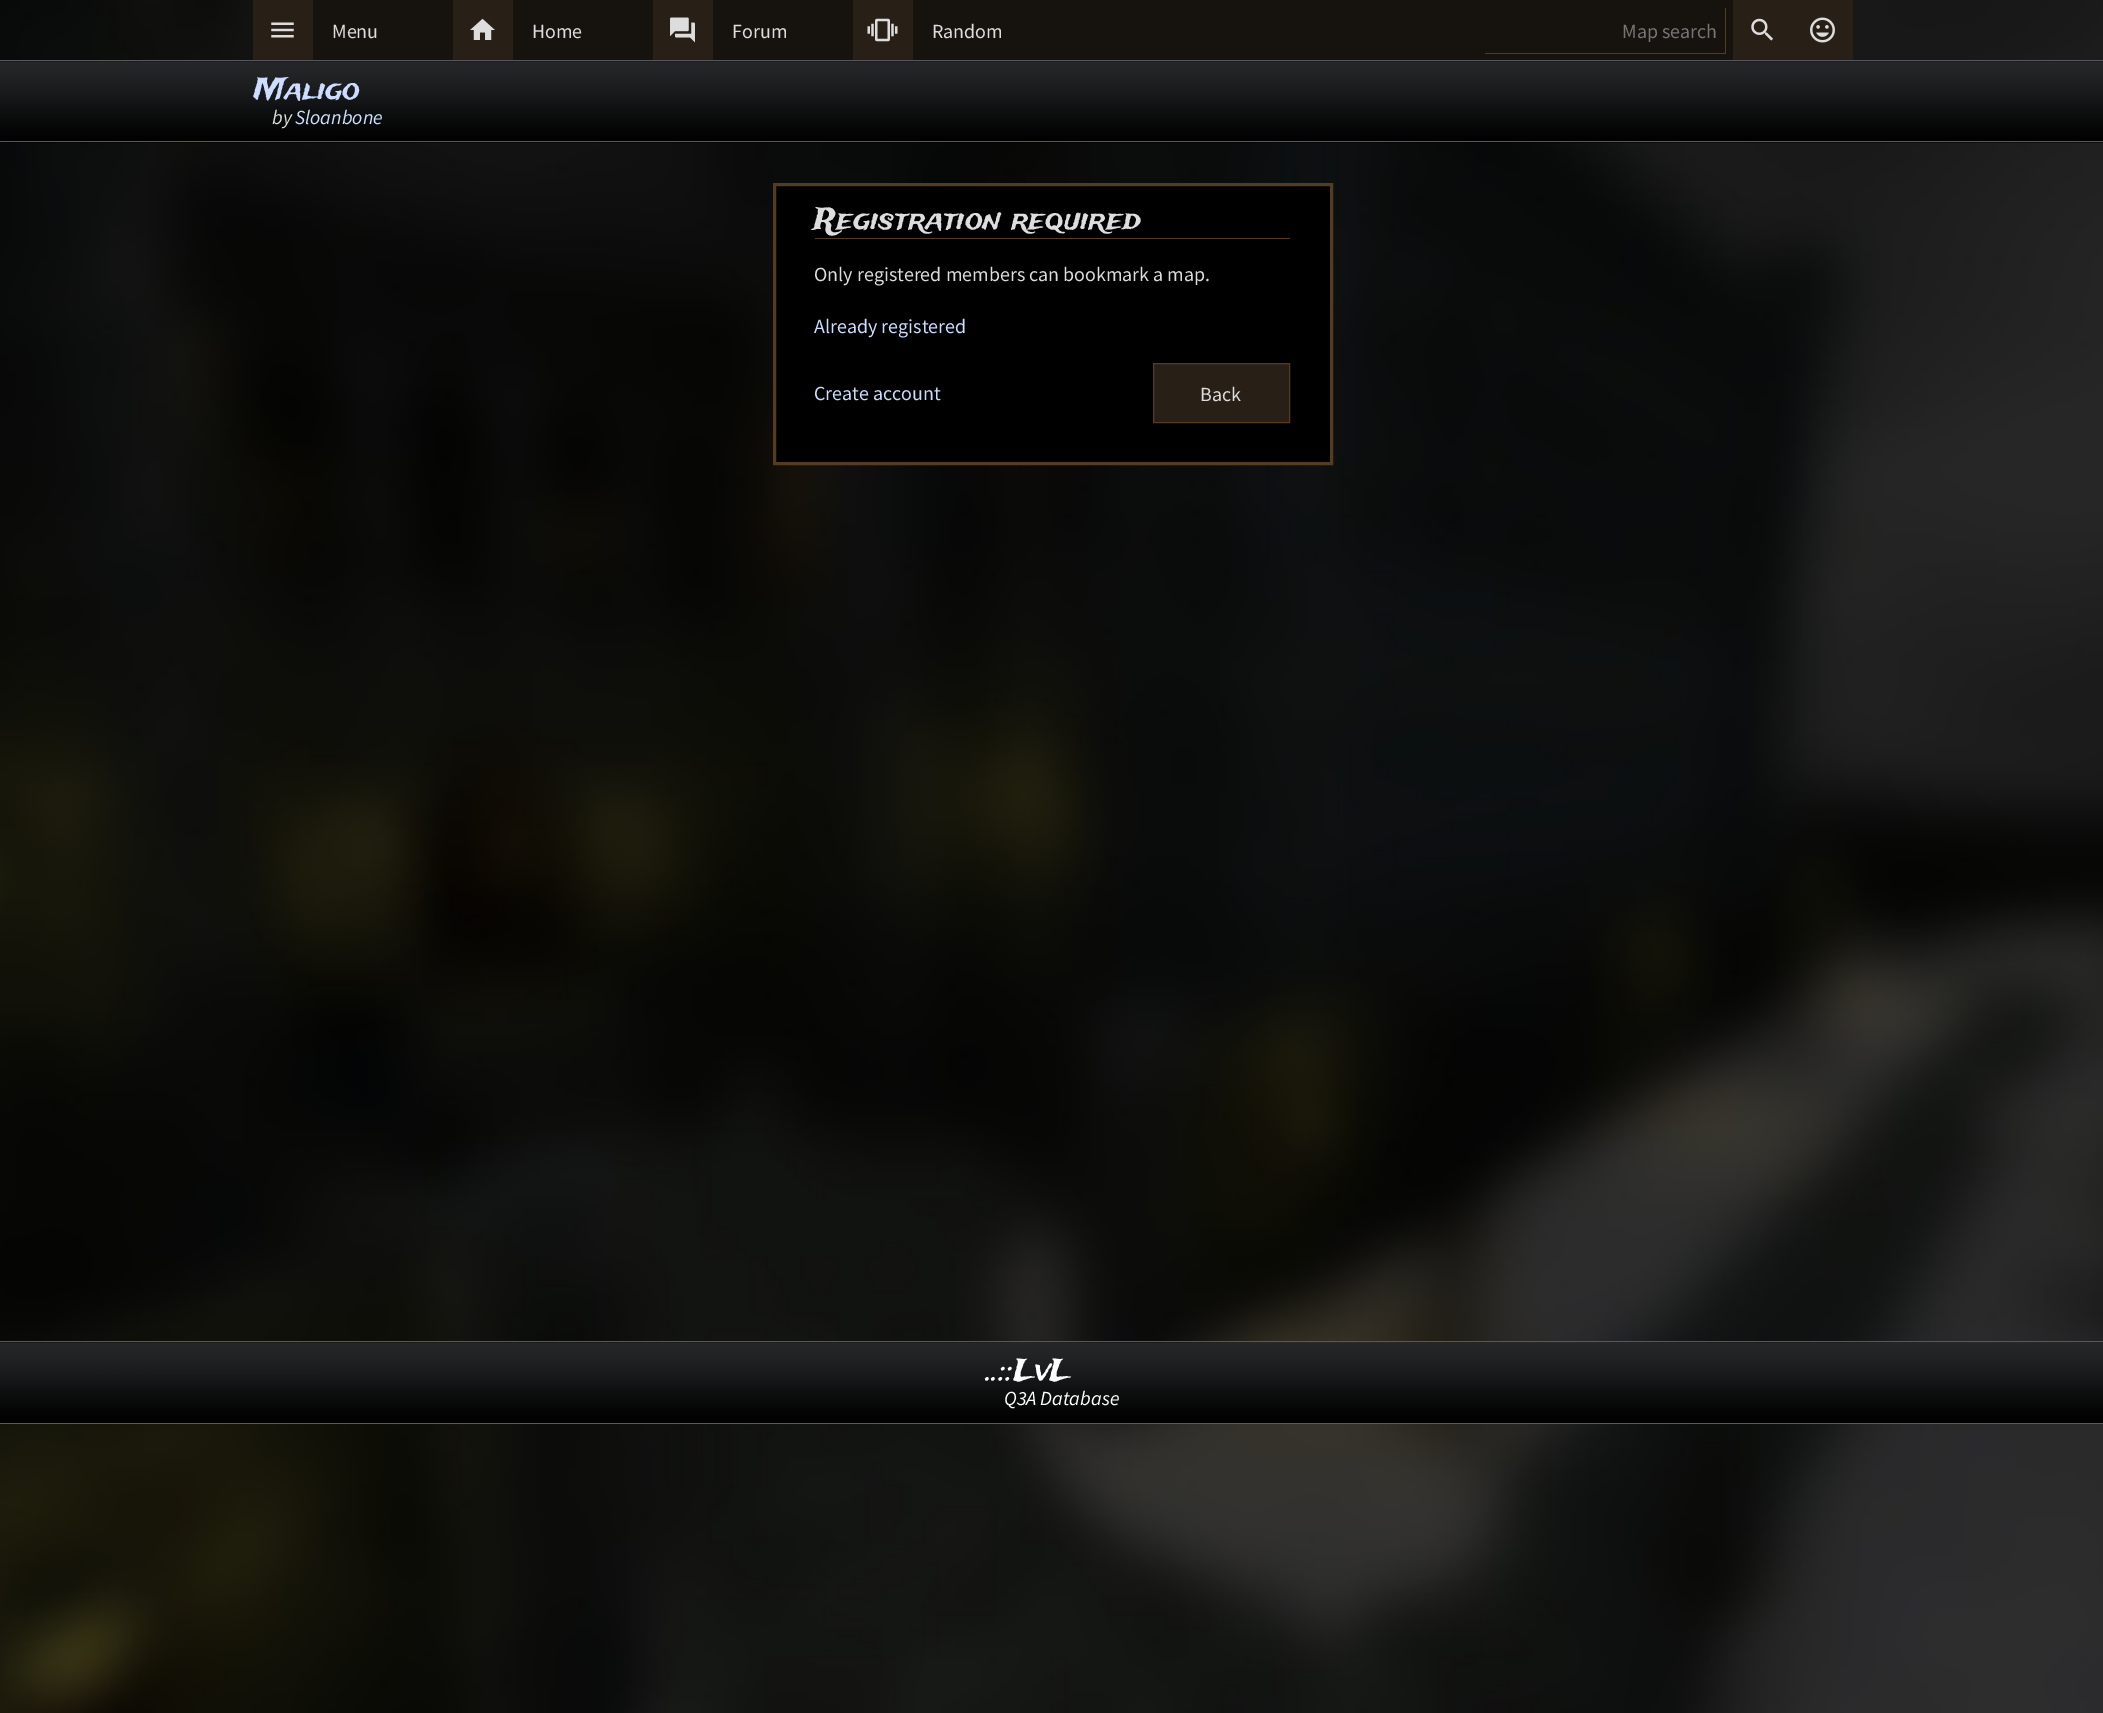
%!PS-Adobe-3.0
%%BoundingBox: 0 0 2103 1713
%%LanguageLevel: 3
%%Pages: 1
%%EndComments
%%BeginProlog
/drawimage { 5 dict begin { /h /w /y /x /name } { exch def } forall
  gsave x y translate w h scale
  w h 8 [w 0 0 h 0 0] name (r) file false 3 colorimage grestore end } def
%%EndProlog
%%BeginSetup
<< /PageSize [2103 1713] >> setpagedevice
%%EndSetup
%%Page: 1 1
0 1713 translate 1 -1 scale
4 setmiterlimit
1 setgray
0 0 2103 1713 rectfill
(images/1.raw) 0 0 2103 1713 drawimage
0.086 0.075 0.059 setrgbcolor
313 0 1420 60 rectfill
0.157 0.125 0.086 setrgbcolor
253 0 60 60 rectfill
(images/2.raw) 271 22 23 16 drawimage
453 0 60 60 rectfill
(images/3.raw) 470 18 25 22 drawimage
653 0 60 60 rectfill
(images/4.raw) 670 17 25 26 drawimage
853 0 60 60 rectfill
(images/5.raw) 867 18 31 24 drawimage
0.329 0.235 0.133 setrgbcolor
1725 8 1 46 rectfill
1485 53 241 1 rectfill
0.157 0.125 0.086 setrgbcolor
1733 0 120 60 rectfill
(images/6.raw) 1751 18 22 23 drawimage
(images/7.raw) 1810 17 25 26 drawimage
(images/8.raw) 0 61 2103 82 drawimage
0.337 0.345 0.365 setrgbcolor
0 60 2103 1 rectfill
0 141 2103 1 rectfill
0 setgray
newpath 774.5 184.5 moveto 1331.5 184.5 lineto 1331.5 463.5 lineto 774.5 463.5 lineto closepath gsave fill grestore
0.329 0.235 0.133 setrgbcolor
3 setlinewidth
stroke
815 238 475 1 rectfill
0.157 0.125 0.086 setrgbcolor
newpath 1153.5 363.5 moveto 1289.5 363.5 lineto 1289.5 422.5 lineto 1153.5 422.5 lineto closepath gsave fill grestore
0.329 0.235 0.133 setrgbcolor
1 setlinewidth
stroke
(images/9.raw) 0 1342 2103 81 drawimage
0.337 0.345 0.365 setrgbcolor
0 1341 2103 1 rectfill
0 1423 2103 1 rectfill
/SourceSansPro-Regular [20 0 0 -20 0 0] selectfont
0.867 setgray
332 38 moveto (Menu) show
532 38 moveto (Home) show
732 38 moveto (Forum) show
932 38 moveto (Random) show
0.459 setgray
1622 38 moveto (Map search) show
/TradeWinds-Regular [30 0 0 -30 0 0] selectfont
0.8 0.867 1 setrgbcolor
254 99 moveto (Maligo) show
/SourceSansPro-Italic [20 0 0 -20 0 0] selectfont
0.867 setgray
272 124 moveto (by) show
0.8 0.867 1 setrgbcolor
295 124 moveto (Sloanbone) show
/TradeWinds-Regular [30 0 0 -30 0 0] selectfont
0.867 setgray
814 229 moveto (Registration required) show
/SourceSansPro-Regular [20 0 0 -20 0 0] selectfont
814 281 moveto (Only registered members can bookmark a map.) show
0.8 0.867 1 setrgbcolor
814 333 moveto (Already registered) show
814 400 moveto (Create account) show
0.867 setgray
1200 401 moveto (Back) show
/TradeWinds-Regular [30 0 0 -30 0 0] selectfont
1 setgray
987 1380 moveto (..::LvL) show
/SourceSansPro-Italic [20 0 0 -20 0 0] selectfont
1004 1405 moveto (Q3A Database) show
showpage
%%EOF
